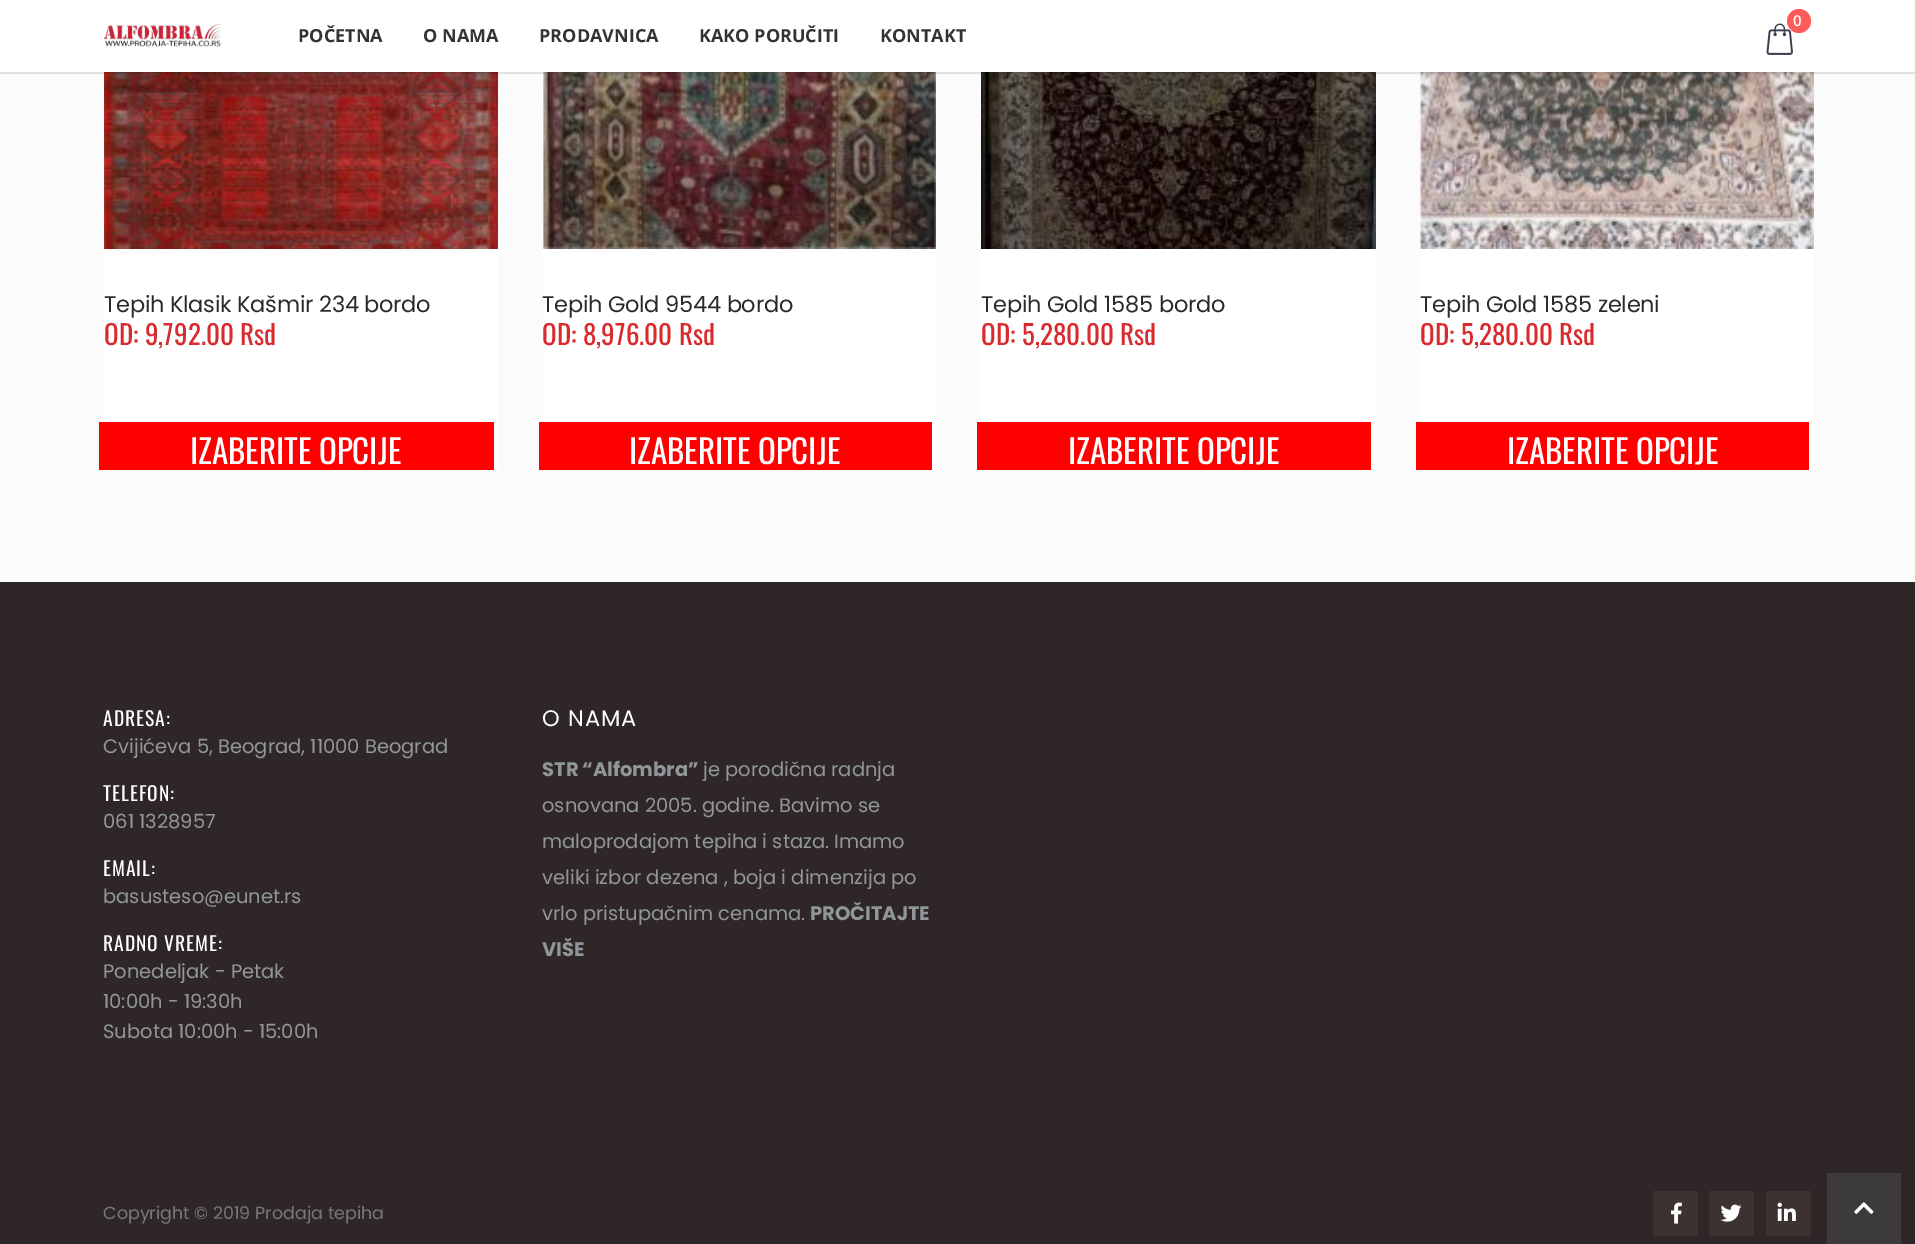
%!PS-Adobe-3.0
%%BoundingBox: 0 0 1915 1244
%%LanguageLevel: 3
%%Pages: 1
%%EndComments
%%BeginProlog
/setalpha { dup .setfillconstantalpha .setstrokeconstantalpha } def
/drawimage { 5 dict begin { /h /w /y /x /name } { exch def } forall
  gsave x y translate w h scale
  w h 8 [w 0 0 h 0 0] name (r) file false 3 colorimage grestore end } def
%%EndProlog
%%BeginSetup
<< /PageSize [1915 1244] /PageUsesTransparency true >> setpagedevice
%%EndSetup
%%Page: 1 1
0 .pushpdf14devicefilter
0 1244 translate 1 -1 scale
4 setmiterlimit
0.984 setgray
0 0 1915 1244 rectfill
(images/3.raw) 104 72 394 177 drawimage
1 setgray
543 72 393 398 rectfill
(images/4.raw) 543 72 393 177 drawimage
(images/5.raw) 981 72 395 177 drawimage
1421 72 393 398 rectfill
(images/6.raw) 1420 72 394 177 drawimage
0.1 setalpha
0 setgray
newpath 0 72 moveto 0 74 lineto 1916 74 lineto 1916 2 lineto 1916 72 lineto closepath fill
1 setalpha
1 setgray
0 0 1915 72 rectfill
(images/1.raw) 1766 23 27 32 drawimage
1 0.357 0.357 setrgbcolor
newpath 1799 21 12 0 360 arc closepath fill
(images/2.raw) 103 23 118 24 drawimage
1 setgray
104 249 394 221 rectfill
1 0 0 setrgbcolor
99 422 395 48 rectfill
539 422 393 48 rectfill
1 setgray
981 249 395 221 rectfill
1 0 0 setrgbcolor
977 422 394 48 rectfill
1416 422 393 48 rectfill
0.184 0.153 0.153 setrgbcolor
0 582 1915 662 rectfill
0.235 0.196 0.196 setrgbcolor
1653 1191 45 45 rectfill
(images/7.raw) 1671 1202 11 22 drawimage
1709 1191 45 45 rectfill
(images/8.raw) 1720 1204 22 18 drawimage
1766 1191 45 45 rectfill
(images/9.raw) 1777 1202 19 19 drawimage
0.235 0.227 0.227 setrgbcolor
1827 1173 74 71 rectfill
(images/10.raw) 1854 1202 20 12 drawimage
/OpenSans-SemiBold [15 0 0 -15 0 0] selectfont
1 setgray
1793 26 moveto (0) show
/OpenSans-Bold [18 0 0 -18 0 0] selectfont
0.2 setgray
298 42 moveto (POČETNA) show
423 42 moveto (O NAMA) show
539 42 moveto (PRODAVNICA) show
699 42 moveto (KAKO PORUČITI) show
880 42 moveto (KONTAKT) show
/Poppins-Regular [22.5 0 0 -22.5 0 0] selectfont
0.169 0.169 0.176 setrgbcolor
104 312 moveto -0.25 0 (Tepih Klasik Kašmir 234 bordo) ashow
/Oswald-Regular [27 0 0 -27 0 0] selectfont
0.851 0.165 0.18 setrgbcolor
104 345 moveto 0.1 0 (OD: 9,792.00 Rsd) ashow
/Oswald-Regular [33 0 0 -33 0 0] selectfont
1 setgray
190 464 moveto (IZABERITE OPCIJE) show
/Poppins-Regular [22.5 0 0 -22.5 0 0] selectfont
0.169 0.169 0.176 setrgbcolor
542 312 moveto -0.25 0 (Tepih Gold 9544 bordo) ashow
/Oswald-Regular [27 0 0 -27 0 0] selectfont
0.851 0.165 0.18 setrgbcolor
542 345 moveto 0.1 0 (OD: 8,976.00 Rsd) ashow
/Oswald-Regular [33 0 0 -33 0 0] selectfont
1 setgray
629 464 moveto (IZABERITE OPCIJE) show
/Poppins-Regular [22.5 0 0 -22.5 0 0] selectfont
0.169 0.169 0.176 setrgbcolor
981 312 moveto -0.25 0 (Tepih Gold 1585 bordo) ashow
/Oswald-Regular [27 0 0 -27 0 0] selectfont
0.851 0.165 0.18 setrgbcolor
981 345 moveto 0.1 0 (OD: 5,280.00 Rsd) ashow
/Oswald-Regular [33 0 0 -33 0 0] selectfont
1 setgray
1068 464 moveto (IZABERITE OPCIJE) show
/Poppins-Regular [22.5 0 0 -22.5 0 0] selectfont
0.169 0.169 0.176 setrgbcolor
1420 312 moveto -0.25 0 (Tepih Gold 1585 zeleni) ashow
/Oswald-Regular [27 0 0 -27 0 0] selectfont
0.851 0.165 0.18 setrgbcolor
1420 345 moveto 0.1 0 (OD: 5,280.00 Rsd) ashow
/Oswald-Regular [33 0 0 -33 0 0] selectfont
1 setgray
1507 464 moveto (IZABERITE OPCIJE) show
/Oswald-Regular [19.5 0 0 -19.5 0 0] selectfont
103 726 moveto 1 0 (ADRESA:) ashow
/Poppins-Regular [19.5 0 0 -19.5 0 0] selectfont
0.565 0.588 0.604 setrgbcolor
103 753 moveto (Cvijićeva 5, Beograd, 11000 Beograd) show
/Oswald-Regular [19.5 0 0 -19.5 0 0] selectfont
1 setgray
103 801 moveto 1 0 (TELEFON:) ashow
/Poppins-Regular [19.5 0 0 -19.5 0 0] selectfont
0.565 0.588 0.604 setrgbcolor
103 828 moveto (061 1328957) show
/Oswald-Regular [19.5 0 0 -19.5 0 0] selectfont
1 setgray
103 876 moveto 1 0 (EMAIL:) ashow
/Poppins-Regular [19.5 0 0 -19.5 0 0] selectfont
0.565 0.588 0.604 setrgbcolor
103 903 moveto (basusteso@eunet.rs) show
/Oswald-Regular [19.5 0 0 -19.5 0 0] selectfont
1 setgray
103 951 moveto 1 0 (RADNO VREME:) ashow
/Poppins-Regular [19.5 0 0 -19.5 0 0] selectfont
0.565 0.588 0.604 setrgbcolor
103 978 moveto (Ponedeljak - Petak) show
103 1008 moveto (10:00h - 19:30h) show
103 1038 moveto (Subota 10:00h - 15:00h) show
/Poppins-Regular [22.5 0 0 -22.5 0 0] selectfont
1 setgray
542 726 moveto 1 0 (O NAMA) ashow
/Poppins-Bold [19.5 0 0 -19.5 0 0] selectfont
0.565 0.588 0.604 setrgbcolor
542 776 moveto (STR “Alfombra”) show
/Poppins-Regular [19.5 0 0 -19.5 0 0] selectfont
703 776 moveto (je porodična radnja) show
542 812 moveto (osnovana 2005. godine. Bavimo se) show
542 848 moveto (maloprodajom tepiha i staza. Imamo) show
542 884 moveto (veliki izbor dezena , boja i dimenzija po) show
542 920 moveto (vrlo pristupačnim cenama.) show
/Poppins-Bold [19.5 0 0 -19.5 0 0] selectfont
810 920 moveto (PROČITAJTE) show
542 956 moveto (VIŠE) show
/Poppins-Regular [17.5 0 0 -17.5 0 0] selectfont
0.467 setgray
103 1219 moveto (Copyright © 2019 Prodaja tepiha) show
.poppdf14devicefilter showpage
%%EOF
